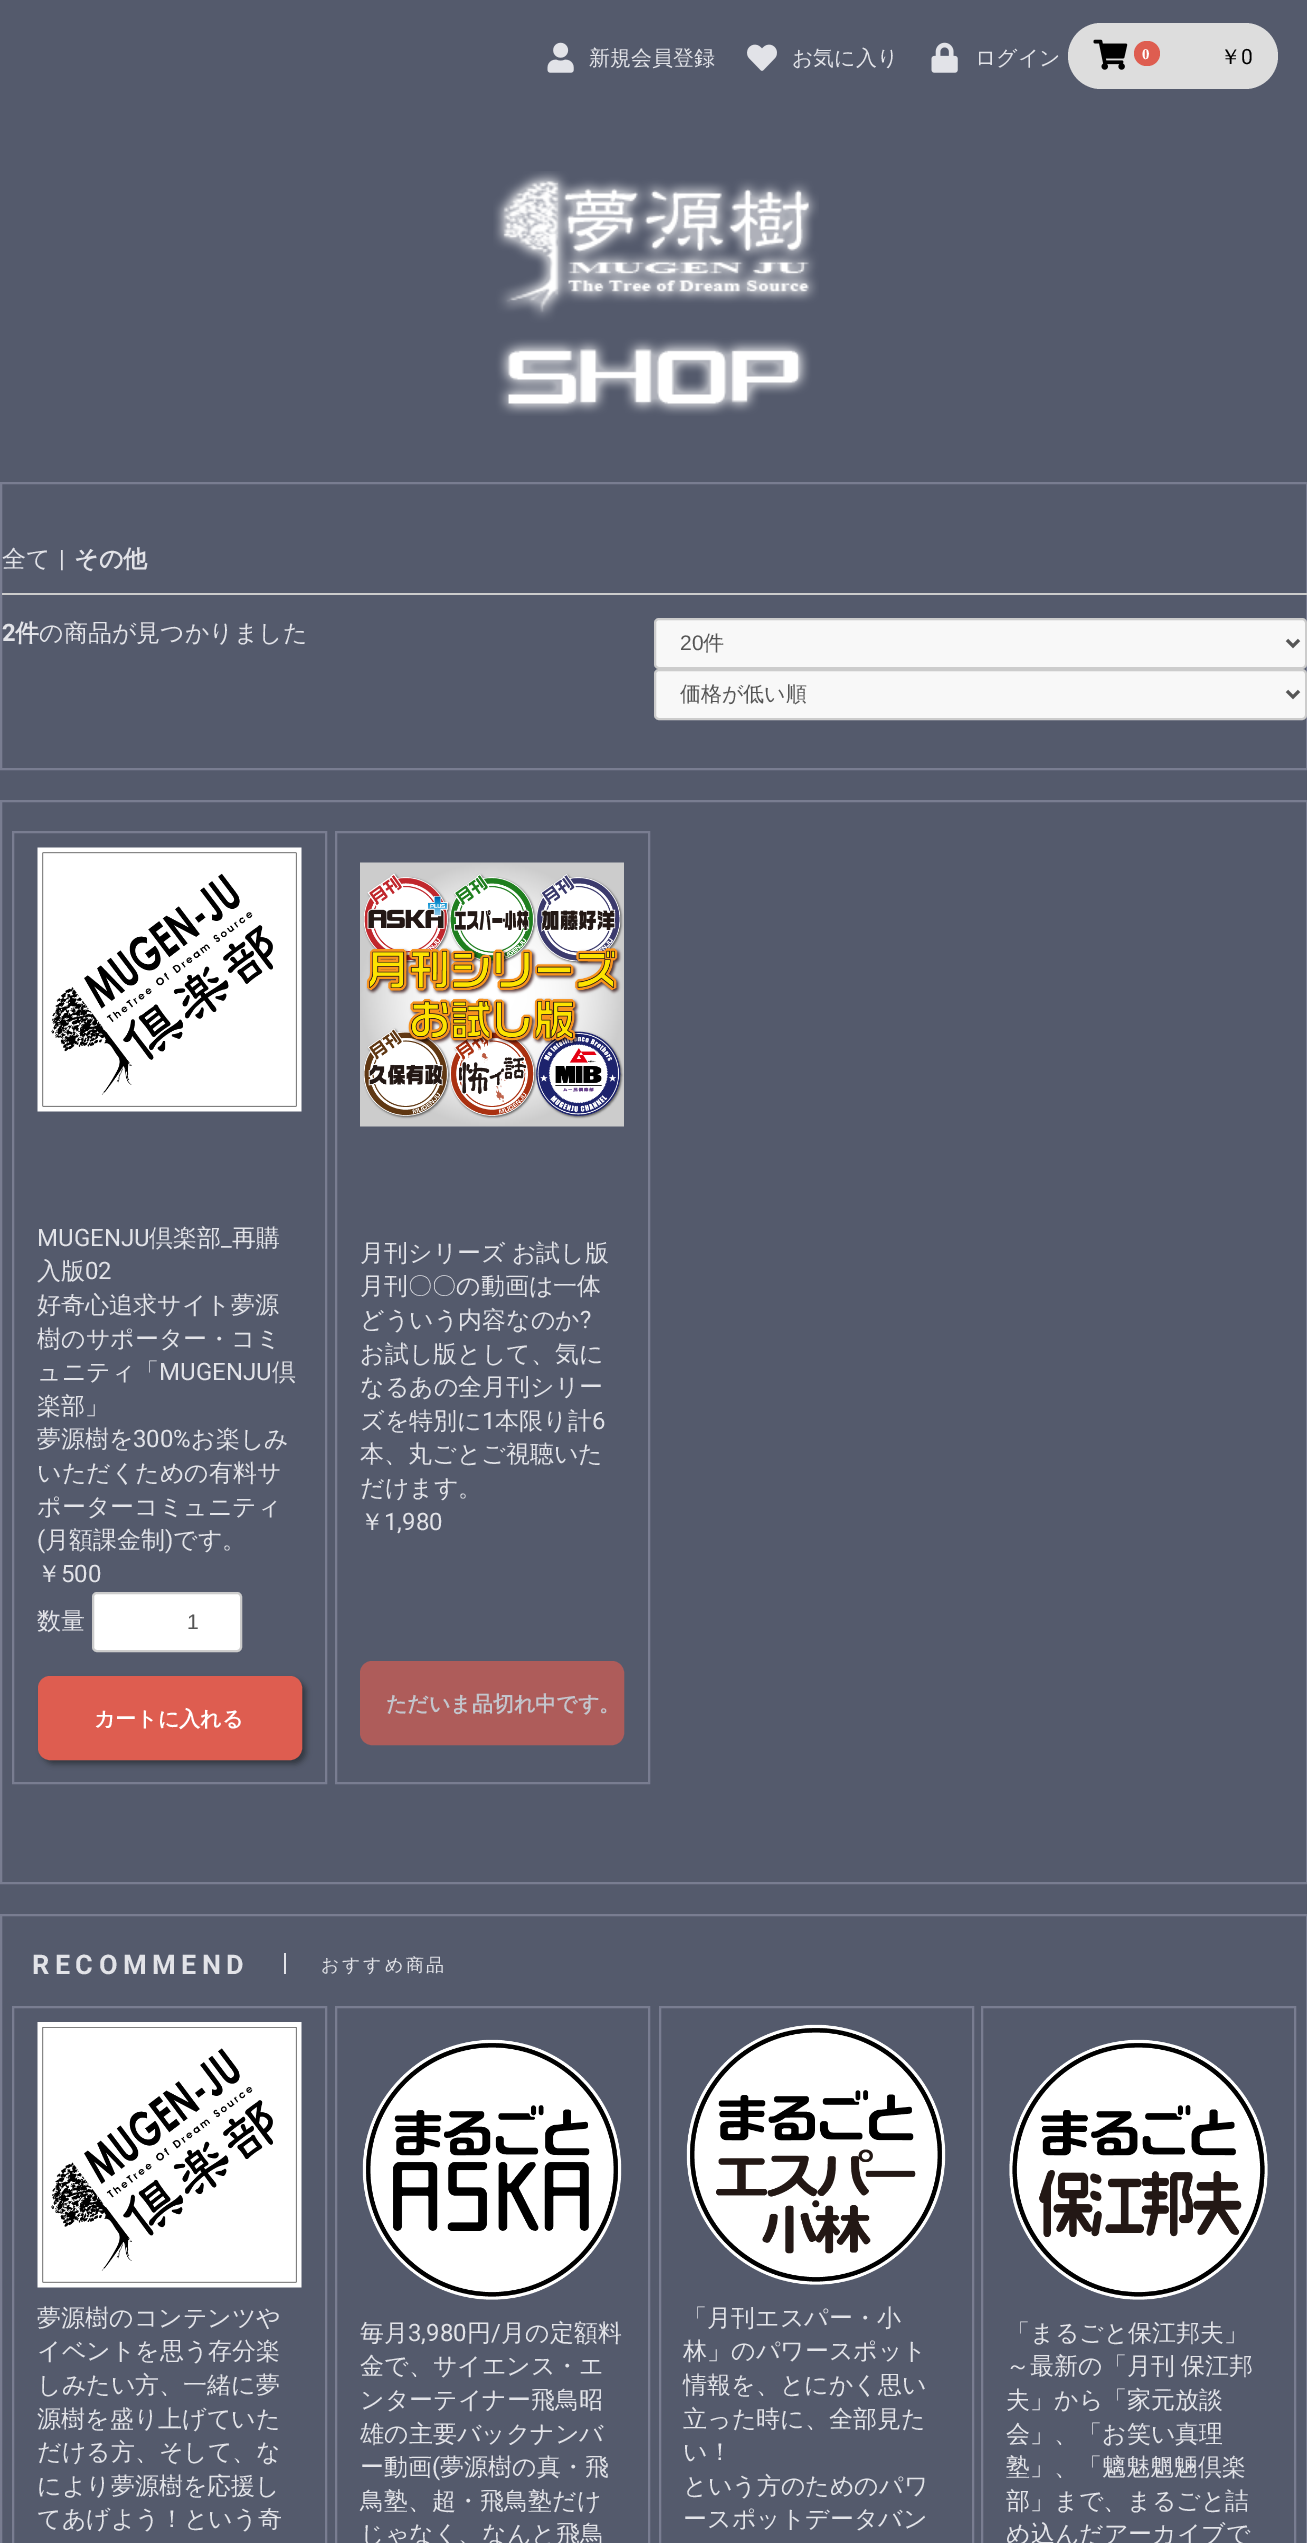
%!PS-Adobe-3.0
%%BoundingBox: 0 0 1307 2543
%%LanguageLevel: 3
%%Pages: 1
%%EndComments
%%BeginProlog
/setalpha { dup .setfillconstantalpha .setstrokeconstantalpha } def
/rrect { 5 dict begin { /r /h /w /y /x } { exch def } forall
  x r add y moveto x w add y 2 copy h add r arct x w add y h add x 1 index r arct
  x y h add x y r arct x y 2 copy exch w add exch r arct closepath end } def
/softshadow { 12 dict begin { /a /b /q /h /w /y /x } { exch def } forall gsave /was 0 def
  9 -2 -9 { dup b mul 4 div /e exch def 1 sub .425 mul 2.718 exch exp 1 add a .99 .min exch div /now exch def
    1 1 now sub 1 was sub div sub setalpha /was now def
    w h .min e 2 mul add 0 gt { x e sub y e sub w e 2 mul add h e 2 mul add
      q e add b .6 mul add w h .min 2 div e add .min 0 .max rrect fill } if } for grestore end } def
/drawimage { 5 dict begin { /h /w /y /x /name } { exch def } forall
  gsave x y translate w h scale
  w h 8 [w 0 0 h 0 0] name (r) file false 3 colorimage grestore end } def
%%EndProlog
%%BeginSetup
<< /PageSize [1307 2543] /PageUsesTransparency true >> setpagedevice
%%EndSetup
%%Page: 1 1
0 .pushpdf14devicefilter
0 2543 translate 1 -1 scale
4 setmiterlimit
0.329 0.353 0.424 setrgbcolor
0 0 1307 2543 rectfill
(images/1.raw) 547 42 27 31 drawimage
(images/2.raw) 747 44 30 27 drawimage
(images/3.raw) 931 42 27 31 drawimage
0.867 setgray
1068 23 210 66 33 rrect fill
(images/4.raw) 1093 39 35 31 drawimage
0.871 0.365 0.314 setrgbcolor
1134 41 26 25 12.5 rrect fill
(images/5.raw) 493 171 326 245 drawimage
0.475 0.49 0.569 setrgbcolor
2 setlinewidth
1 483 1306 286 rectstroke
0.8 setgray
2 593 1305 2 rectfill
0.973 setgray
655 619 651 49 4 rrect gsave fill grestore
0.8 setgray
stroke
0.333 setgray
3 setlinewidth
newpath 1287 640 moveto 1293 646 lineto 1299 640 lineto stroke
0.973 setgray
655 670 651 49 4 rrect gsave fill grestore
0.8 setgray
2 setlinewidth
stroke
0.333 setgray
3 setlinewidth
newpath 1287 691 moveto 1293 697 lineto 1299 691 lineto stroke
0.475 0.49 0.569 setrgbcolor
2 setlinewidth
1 801 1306 1082 rectstroke
13 832 313 951 rectstroke
(images/6.raw) 37 847 265 265 drawimage
1 setgray
93 1593 148 58 4 rrect gsave fill grestore
0.8 setgray
stroke
0 setgray
42 1680 264 84 12 3 0.4 softshadow
0.871 0.365 0.314 setrgbcolor
39 1677 262 82 11 rrect gsave fill grestore
stroke
0.475 0.49 0.569 setrgbcolor
336 832 313 951 rectstroke
(images/7.raw) 360 862 264 265 drawimage
0.682 0.361 0.353 setrgbcolor
361 1662 262 82 11 rrect gsave fill grestore
stroke
0.475 0.49 0.569 setrgbcolor
1 1915 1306 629 rectstroke
0.886 0.89 0.91 setrgbcolor
284 1953 2 21 rectfill
0.475 0.49 0.569 setrgbcolor
13 2007 313 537 rectstroke
(images/8.raw) 37 2022 265 266 drawimage
336 2007 313 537 rectstroke
(images/9.raw) 362 2039 260 261 drawimage
660 2007 313 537 rectstroke
(images/10.raw) 686 2024 260 261 drawimage
982 2007 313 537 rectstroke
(images/11.raw) 1009 2039 259 261 drawimage
/WenQuanYiZenHei-Medium [21 0 0 -21 0 0] selectfont
0.886 0.89 0.91 setrgbcolor
589 65 moveto (新規会員登録) show
792 65 moveto (お気に入り) show
975 65 moveto (ログイン) show
/LiberationSerif-Bold [15 0 0 -15 0 0] selectfont
1 setgray
1142 59 moveto (0) show
/WenQuanYiZenHei-Medium [21 0 0 -21 0 0] selectfont
0 setgray
1220 64 moveto (￥) show
/Roboto-Regular [21 0 0 -21 0 0] selectfont
1241 64 moveto (0) show
/WenQuanYiZenHei-Medium [24 0 0 -24 0 0] selectfont
0.886 0.89 0.91 setrgbcolor
2 567 moveto (全て) show
/Roboto-Regular [24 0 0 -24 0 0] selectfont
59 567 moveto (|) show
/WenQuanYiZenHei-Bold [24 0 0 -24 0 0] selectfont
74 567 moveto (その他) show
/Roboto-Bold [24 0 0 -24 0 0] selectfont
2 641 moveto (2) show
/WenQuanYiZenHei-Bold [24 0 0 -24 0 0] selectfont
15 641 moveto (件) show
/WenQuanYiZenHei-Medium [24 0 0 -24 0 0] selectfont
39 641 moveto (の商品が見つかりました) show
/LiberationSans-Regular [21 0 0 -21 0 0] selectfont
0.333 setgray
680 650 moveto (20) show
/WenQuanYiZenHei-Medium [21 0 0 -21 0 0] selectfont
703 650 moveto (件) show
680 701 moveto (価格が低い順) show
/Roboto-Regular [24 0 0 -24 0 0] selectfont
0.886 0.89 0.91 setrgbcolor
37 1246 moveto (MUGENJU) show
/WenQuanYiZenHei-Medium [24 0 0 -24 0 0] selectfont
149 1246 moveto (倶楽部) show
/Roboto-Regular [24 0 0 -24 0 0] selectfont
221 1246 moveto (_) show
/WenQuanYiZenHei-Medium [24 0 0 -24 0 0] selectfont
232 1246 moveto (再購) show
37 1279 moveto (入版) show
/Roboto-Regular [24 0 0 -24 0 0] selectfont
85 1279 moveto (02) show
/WenQuanYiZenHei-Medium [24 0 0 -24 0 0] selectfont
37 1313 moveto (好奇心追求サイト夢源) show
37 1347 moveto (樹のサポーター・コミ) show
37 1380 moveto (ュニティ「) show
/Roboto-Regular [24 0 0 -24 0 0] selectfont
159 1380 moveto (MUGENJU) show
/WenQuanYiZenHei-Medium [24 0 0 -24 0 0] selectfont
272 1380 moveto (倶) show
37 1414 moveto (楽部」) show
37 1447 moveto (夢源樹を) show
/Roboto-Regular [24 0 0 -24 0 0] selectfont
133 1447 moveto (300%) show
/WenQuanYiZenHei-Medium [24 0 0 -24 0 0] selectfont
191 1447 moveto (お楽しみ) show
37 1481 moveto (いただくための有料サ) show
37 1515 moveto (ポーターコミュニティ) show
/Roboto-Regular [24 0 0 -24 0 0] selectfont
37 1548 moveto (\() show
/WenQuanYiZenHei-Medium [24 0 0 -24 0 0] selectfont
45 1548 moveto (月額課金制) show
/Roboto-Regular [24 0 0 -24 0 0] selectfont
165 1548 moveto (\)) show
/WenQuanYiZenHei-Medium [24 0 0 -24 0 0] selectfont
173 1548 moveto (です。) show
37 1582 moveto (￥) show
/Roboto-Regular [24 0 0 -24 0 0] selectfont
61 1582 moveto (500) show
/WenQuanYiZenHei-Medium [24 0 0 -24 0 0] selectfont
37 1629 moveto (数量) show
/LiberationSans-Regular [21 0 0 -21 0 0] selectfont
0.333 setgray
187 1629 moveto (1) show
/WenQuanYiZenHei-Bold [21 0 0 -21 0 0] selectfont
1 setgray
94 1726 moveto (カートに入れる) show
/WenQuanYiZenHei-Medium [24 0 0 -24 0 0] selectfont
0.886 0.89 0.91 setrgbcolor
360 1261 moveto -1 0 32 (月刊シリーズ お試し版) widthshow
360 1294 moveto (月刊〇〇の動画は一体) show
360 1328 moveto (どういう内容なのか) show
/Roboto-Regular [24 0 0 -24 0 0] selectfont
580 1328 moveto (?) show
/WenQuanYiZenHei-Medium [24 0 0 -24 0 0] selectfont
360 1362 moveto (お試し版として、気に) show
360 1395 moveto (なるあの全月刊シリー) show
360 1429 moveto (ズを特別に) show
/Roboto-Regular [24 0 0 -24 0 0] selectfont
482 1429 moveto (1) show
/WenQuanYiZenHei-Medium [24 0 0 -24 0 0] selectfont
495 1429 moveto (本限り計) show
/Roboto-Regular [24 0 0 -24 0 0] selectfont
592 1429 moveto (6) show
/WenQuanYiZenHei-Medium [24 0 0 -24 0 0] selectfont
360 1462 moveto (本、丸ごとご視聴いた) show
360 1496 moveto (だけます。) show
360 1530 moveto (￥) show
/Roboto-Regular [24 0 0 -24 0 0] selectfont
384 1530 moveto (1,980) show
/WenQuanYiZenHei-Bold [21 0 0 -21 0 0] selectfont
0.765 0.773 0.8 setrgbcolor
386 1711 moveto (ただいま品切れ中です。) show
/Roboto-Bold [27 0 0 -27 0 0] selectfont
0.886 0.89 0.91 setrgbcolor
32 1974 moveto 5.5 0 (RECOMMEND) ashow
/WenQuanYiZenHei-Medium [18 0 0 -18 0 0] selectfont
321 1971 moveto 2.75 0 (おすすめ商品) ashow
/WenQuanYiZenHei-Medium [24 0 0 -24 0 0] selectfont
37 2326 moveto (夢源樹のコンテンツや) show
37 2359 moveto (イベントを思う存分楽) show
37 2393 moveto (しみたい方、一緒に夢) show
37 2427 moveto (源樹を盛り上げていた) show
37 2460 moveto (だける方、そして、な) show
37 2494 moveto (により夢源樹を応援し) show
37 2527 moveto (てあげよう！という奇) show
360 2341 moveto (毎月) show
/Roboto-Regular [24 0 0 -24 0 0] selectfont
408 2341 moveto (3,980) show
/WenQuanYiZenHei-Medium [24 0 0 -24 0 0] selectfont
467 2341 moveto (円) show
/Roboto-Regular [24 0 0 -24 0 0] selectfont
491 2341 moveto (/) show
/WenQuanYiZenHei-Medium [24 0 0 -24 0 0] selectfont
501 2341 moveto (月の定額料) show
360 2374 moveto (金で、サイエンス・エ) show
360 2408 moveto (ンターテイナー飛鳥昭) show
360 2442 moveto (雄の主要バックナンバ) show
360 2475 moveto (ー動画) show
/Roboto-Regular [24 0 0 -24 0 0] selectfont
432 2475 moveto (\() show
/WenQuanYiZenHei-Medium [24 0 0 -24 0 0] selectfont
440 2475 moveto (夢源樹の真・飛) show
360 2509 moveto (鳥塾、超・飛鳥塾だけ) show
360 2542 moveto (じゃなく、なんと飛鳥) show
683 2326 moveto (「月刊エスパー・小) show
683 2359 moveto (林」のパワースポット) show
683 2393 moveto (情報を、とにかく思い) show
683 2427 moveto (立った時に、全部見た) show
683 2460 moveto (い！) show
683 2494 moveto (という方のためのパワ) show
683 2527 moveto (ースポットデータバン) show
1006 2341 moveto (「まるごと保江邦夫」) show
1006 2374 moveto -1 0 32 (～最新の「月刊 保江邦) widthshow
1006 2408 moveto (夫」から「家元放談) show
1006 2442 moveto (会」、「お笑い真理) show
1006 2475 moveto (塾」、「魑魅魍魎倶楽) show
1006 2509 moveto (部」まで、まるごと詰) show
1006 2542 moveto (め込んだアーカイブで) show
.poppdf14devicefilter showpage
%%EOF
